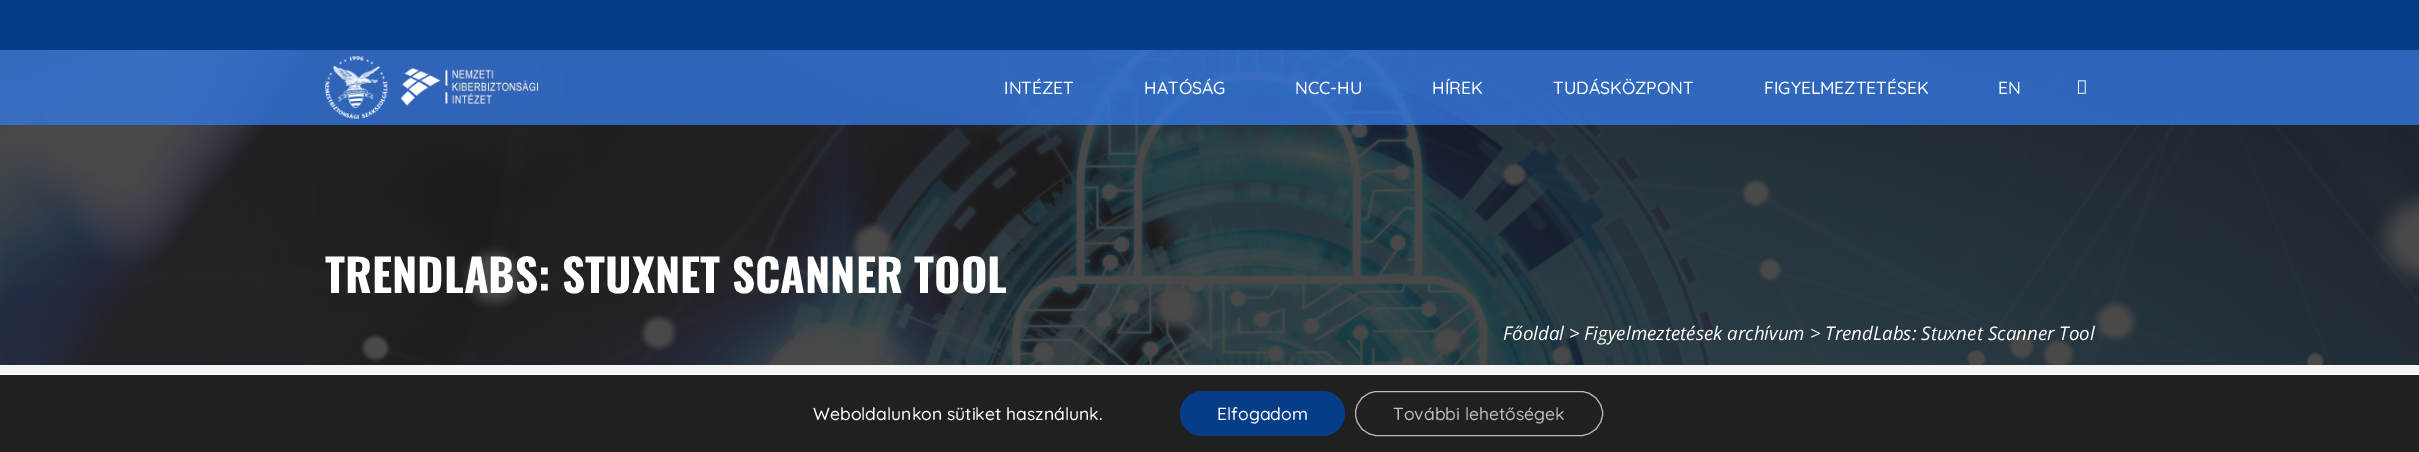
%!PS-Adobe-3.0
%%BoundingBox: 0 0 2419 452
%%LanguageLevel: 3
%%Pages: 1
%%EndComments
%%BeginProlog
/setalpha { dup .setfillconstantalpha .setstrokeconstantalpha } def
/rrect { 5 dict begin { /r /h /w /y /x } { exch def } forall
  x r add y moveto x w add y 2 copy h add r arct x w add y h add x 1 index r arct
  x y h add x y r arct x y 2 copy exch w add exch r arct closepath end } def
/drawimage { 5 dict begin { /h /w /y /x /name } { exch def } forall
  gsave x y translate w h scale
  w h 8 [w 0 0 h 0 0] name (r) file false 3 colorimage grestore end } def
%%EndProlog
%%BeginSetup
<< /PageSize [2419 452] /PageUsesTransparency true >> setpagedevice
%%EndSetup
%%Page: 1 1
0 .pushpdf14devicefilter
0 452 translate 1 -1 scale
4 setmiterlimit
1 setgray
0 0 2419 452 rectfill
0.024 0.239 0.533 setrgbcolor
0 0 2419 50 rectfill
(images/3.raw) 0 50 2419 315 drawimage
0.8 setalpha
0.2 0.463 0.871 setrgbcolor
0 50 2419 75 rectfill
1 setalpha
(images/1.raw) 325 56 214 63 drawimage
(images/2.raw) 2078 80 8 14 drawimage
0.961 setgray
0 365 2419 9 rectfill
0.125 setgray
0 375 2419 77 rectfill
0.024 0.239 0.533 setrgbcolor
1180 391 165 45 22.5 rrect fill
0.737 setgray
1355.5 391.5 247 44 22 rrect stroke
/Quicksand-Medium [17.5 0 0 -17.5 0 0] selectfont
1 setgray
1004 94 moveto (INTÉZET) show
1144 94 moveto (HATÓSÁG) show
1295 94 moveto (NCC-HU) show
1432 94 moveto (HÍREK) show
1553 94 moveto (TUDÁSKÖZPONT) show
1764 94 moveto (FIGYELMEZTETÉSEK) show
1998 94 moveto (EN) show
/Oswald-Bold [45 0 0 -45 0 0] selectfont
325 293 moveto (TRENDLABS: STUXNET SCANNER TOOL) show
/OpenSans-Italic [18.75 0 0 -18.75 0 0] selectfont
1503 340 moveto (Főoldal > Figyelmeztetések archívum > TrendLabs: Stuxnet Scanner Tool) show
/Quicksand-Medium [17.5 0 0 -17.5 0 0] selectfont
813 420 moveto (Weboldalunkon sütiket használunk.) show
1217 420 moveto (Elfogadom) show
0.737 setgray
1393 420 moveto (További lehetőségek) show
.poppdf14devicefilter showpage
%%EOF
